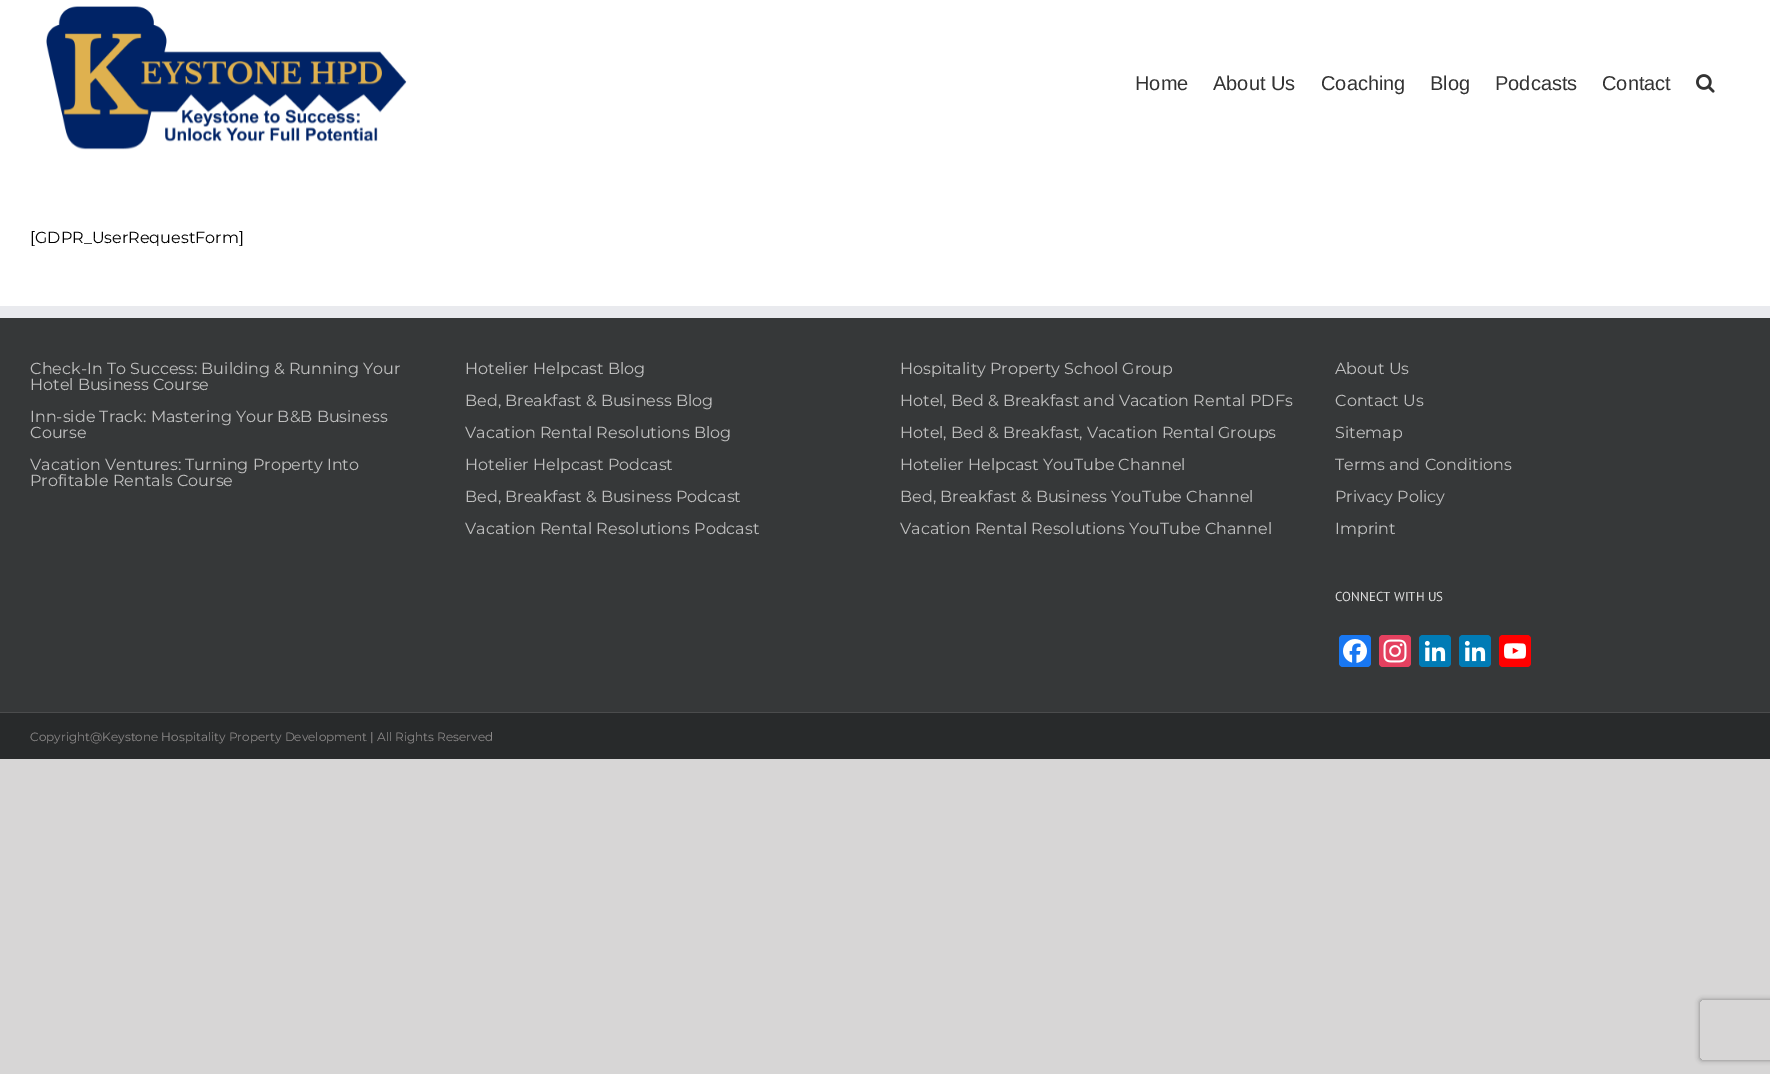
%!PS-Adobe-3.0
%%BoundingBox: 0 0 1770 1074
%%LanguageLevel: 3
%%Pages: 1
%%EndComments
%%BeginProlog
/setalpha { dup .setfillconstantalpha .setstrokeconstantalpha } def
/rrect { 5 dict begin { /r /h /w /y /x } { exch def } forall
  x r add y moveto x w add y 2 copy h add r arct x w add y h add x 1 index r arct
  x y h add x y r arct x y 2 copy exch w add exch r arct closepath end } def
/softshadow { 12 dict begin { /a /b /q /h /w /y /x } { exch def } forall gsave /was 0 def
  9 -2 -9 { dup b mul 4 div /e exch def 1 sub .425 mul 2.718 exch exp 1 add a .99 .min exch div /now exch def
    1 1 now sub 1 was sub div sub setalpha /was now def
    w h .min e 2 mul add 0 gt { x e sub y e sub w e 2 mul add h e 2 mul add
      q e add b .6 mul add w h .min 2 div e add .min 0 .max rrect fill } if } for grestore end } def
/drawimage { 5 dict begin { /h /w /y /x /name } { exch def } forall
  gsave x y translate w h scale
  w h 8 [w 0 0 h 0 0] name (r) file false 3 colorimage grestore end } def
%%EndProlog
%%BeginSetup
<< /PageSize [1770 1074] /PageUsesTransparency true >> setpagedevice
%%EndSetup
%%Page: 1 1
0 .pushpdf14devicefilter
0 1074 translate 1 -1 scale
4 setmiterlimit
0.843 0.839 0.839 setrgbcolor
0 0 1770 1074 rectfill
1 setgray
0 0 1770 306 rectfill
(images/1.raw) 46 6 361 144 drawimage
(images/2.raw) 1696 74 19 19 drawimage
0.212 0.22 0.224 setrgbcolor
0 318 1770 394 rectfill
0.914 0.918 0.933 setrgbcolor
0 306 1770 12 rectfill
0.094 0.467 0.949 setrgbcolor
1339 635 32 32 4 rrect fill
(images/3.raw) 1343 639 24 24 drawimage
0.894 0.251 0.373 setrgbcolor
1379 635 32 32 4 rrect fill
(images/4.raw) 1383 639 24 24 drawimage
0 0.482 0.71 setrgbcolor
1419 635 32 32 4 rrect fill
(images/5.raw) 1424 640 22 22 drawimage
1459 635 32 32 4 rrect fill
(images/5.raw) 1464 640 22 22 drawimage
1 0 0 setrgbcolor
1499 635 32 32 4 rrect fill
(images/6.raw) 1504 643 22 16 drawimage
0.157 0.165 0.169 setrgbcolor
0 713 1770 46 rectfill
0.294 0.298 0.302 setrgbcolor
0 712 1770 1 rectfill
gsave
newpath 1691 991 moveto 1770 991 lineto 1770 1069 lineto 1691 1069 lineto closepath 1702 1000 moveto 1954 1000 lineto 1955 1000 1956 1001 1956 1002 curveto 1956 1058 lineto 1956 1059 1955 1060 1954 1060 curveto 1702 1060 lineto 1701 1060 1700 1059 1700 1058 curveto 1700 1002 lineto 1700 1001 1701 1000 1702 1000 curveto closepath eoclip newpath
0.502 setgray
1700 1000 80 60 2 2.5 1 softshadow
grestore
/LiberationSans-Regular [20 0 0 -20 0 0] selectfont
0.2 setgray
1135 90 moveto (Home) show
1213 90 moveto (About Us) show
1321 90 moveto (Coaching) show
1430 90 moveto (Blog) show
1495 90 moveto (Podcasts) show
1602 90 moveto (Contact) show
/Montserrat-Regular [16 0 0 -16 0 0] selectfont
0 setgray
30 243 moveto ([GDPR_UserRequestForm]) show
0.749 setgray
30 374 moveto (Check-In To Success: Building & Running Your) show
30 390 moveto (Hotel Business Course) show
30 422 moveto (Inn-side Track: Mastering Your B&B Business) show
30 438 moveto (Course) show
30 470 moveto (Vacation Ventures: Turning Property Into) show
30 486 moveto (Profitable Rentals Course) show
465 374 moveto (Hotelier Helpcast Blog) show
465 406 moveto (Bed, Breakfast & Business Blog) show
465 438 moveto (Vacation Rental Resolutions Blog) show
465 470 moveto (Hotelier Helpcast Podcast) show
465 502 moveto (Bed, Breakfast & Business Podcast) show
465 534 moveto (Vacation Rental Resolutions Podcast) show
900 374 moveto (Hospitality Property School Group) show
900 406 moveto (Hotel, Bed & Breakfast and Vacation Rental PDFs) show
900 438 moveto (Hotel, Bed & Breakfast, Vacation Rental Groups) show
900 470 moveto (Hotelier Helpcast YouTube Channel) show
900 502 moveto (Bed, Breakfast & Business YouTube Channel) show
900 534 moveto (Vacation Rental Resolutions YouTube Channel) show
1335 374 moveto (About Us) show
1335 406 moveto (Contact Us) show
1335 438 moveto (Sitemap) show
1335 470 moveto (Terms and Conditions) show
1335 502 moveto (Privacy Policy) show
1335 534 moveto (Imprint) show
/PTSans-Regular [13 0 0 -13 0 0] selectfont
0.867 setgray
1335 601 moveto (CONNECT WITH US) show
/Montserrat-Regular [12 0 0 -12 0 0] selectfont
0.549 0.537 0.537 setrgbcolor
30 741 moveto (Copyright@Keystone Hospitality Property Development | All Rights Reserved) show
.poppdf14devicefilter showpage
%%EOF
